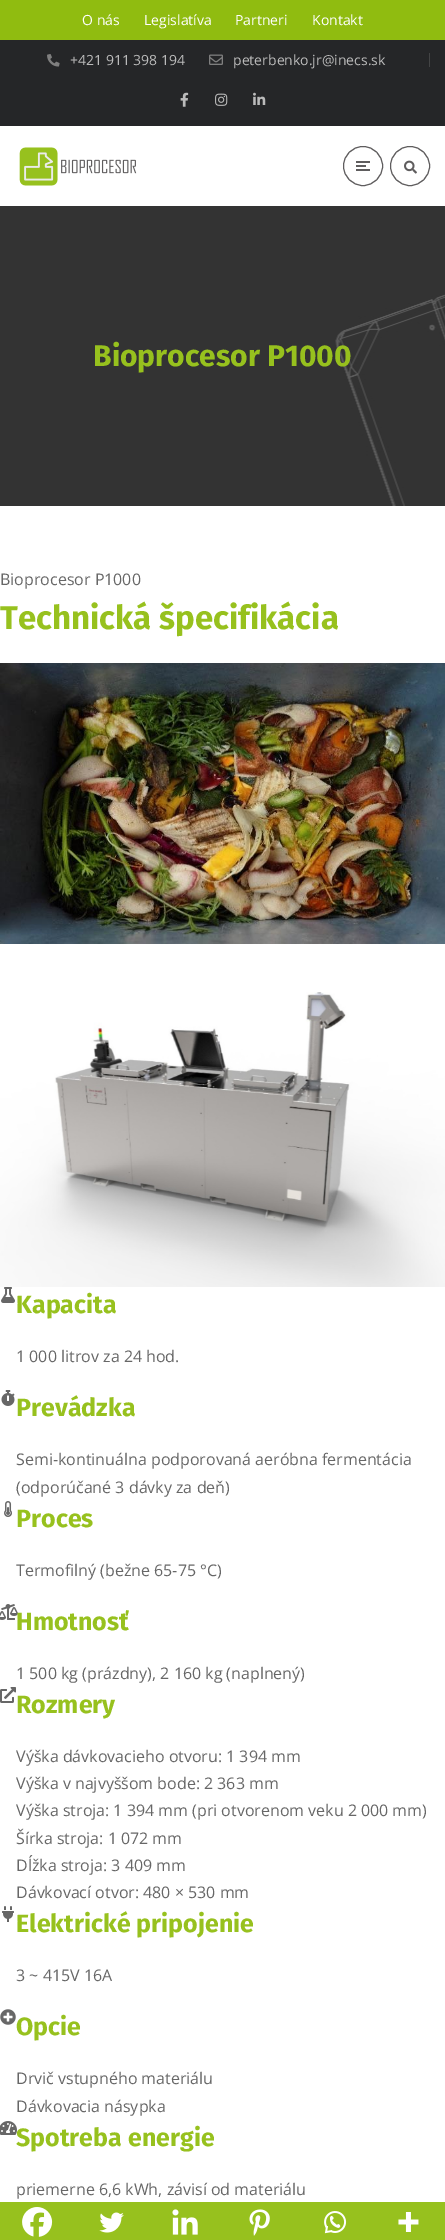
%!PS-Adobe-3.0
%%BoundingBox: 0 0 445 2240
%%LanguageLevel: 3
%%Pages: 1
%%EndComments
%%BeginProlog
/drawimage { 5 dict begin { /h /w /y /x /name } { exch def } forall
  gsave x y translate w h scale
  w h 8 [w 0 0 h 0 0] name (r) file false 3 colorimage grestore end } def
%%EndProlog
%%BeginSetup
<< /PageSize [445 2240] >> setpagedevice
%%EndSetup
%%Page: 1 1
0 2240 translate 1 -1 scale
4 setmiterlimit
1 setgray
0 0 445 2240 rectfill
0.145 0.149 0.157 setrgbcolor
0 40 445 86 rectfill
0.565 0.737 0.063 setrgbcolor
0 0 445 40 rectfill
(images/1.raw) 47 54 13 13 drawimage
(images/2.raw) 209 54 14 11 drawimage
0.263 0.267 0.271 setrgbcolor
429 53 1 14 rectfill
(images/3.raw) 180 92 9 15 drawimage
(images/4.raw) 215 93 13 13 drawimage
(images/5.raw) 253 92 13 13 drawimage
(images/6.raw) 19 147 118 39 drawimage
0.373 0.365 0.369 setrgbcolor
newpath 363 166 19.5 0 360 arc closepath stroke
356 161 14 2 rectfill
356 165 10 2 rectfill
356 169 14 2 rectfill
newpath 410 166 19.5 0 360 arc closepath stroke
(images/7.raw) 404 160 13 14 drawimage
(images/8.raw) 0 206 445 300 drawimage
(images/9.raw) 0 663 445 281 drawimage
(images/10.raw) 0 992 445 295 drawimage
(images/11.raw) 1 1287 14 16 drawimage
(images/12.raw) 1 1390 14 16 drawimage
(images/13.raw) 4 1501 8 16 drawimage
(images/14.raw) 0 1604 18 16 drawimage
(images/15.raw) 0 1687 16 16 drawimage
(images/16.raw) 2 1906 12 16 drawimage
(images/17.raw) 0 2009 16 16 drawimage
(images/18.raw) 0 2121 17 14 drawimage
0.592 0.757 0.118 setrgbcolor
0 2202 445 38 rectfill
(images/19.raw) 22 2207 31 30 drawimage
(images/20.raw) 99 2212 25 21 drawimage
(images/21.raw) 172 2209 26 26 drawimage
(images/22.raw) 249 2209 21 27 drawimage
(images/23.raw) 324 2211 23 23 drawimage
(images/24.raw) 398 2212 21 20 drawimage
/OpenSans-Regular [14 0 0 -14 0 0] selectfont
1 setgray
82 25 moveto (O nás) show
144 25 moveto (Legislatíva) show
235 25 moveto (Partneri) show
312 25 moveto (Kontakt) show
0.733 setgray
70 65 moveto (+421 911 398 194) show
233 65 moveto (peterbenko.jr@inecs.sk) show
/FiraSans-Bold [30 0 0 -30 0 0] selectfont
0.592 0.757 0.118 setrgbcolor
93 366 moveto (Bioprocesor P1000) show
/OpenSans-Regular [16 0 0 -16 0 0] selectfont
0.404 setgray
0 585 moveto (Bioprocesor P1000) show
/FiraSans-Bold [33 0 0 -33 0 0] selectfont
0.592 0.757 0.118 setrgbcolor
0 629 moveto (Technická špecifikácia) show
/FiraSans-Bold [25 0 0 -25 0 0] selectfont
16 1313 moveto (Kapacita) show
/OpenSans-Regular [16 0 0 -16 0 0] selectfont
0.404 setgray
16 1362 moveto (1 000 litrov za 24 hod.) show
/FiraSans-Bold [25 0 0 -25 0 0] selectfont
0.592 0.757 0.118 setrgbcolor
16 1416 moveto (Prevádzka) show
/OpenSans-Regular [16 0 0 -16 0 0] selectfont
0.404 setgray
16 1465 moveto (Semi-kontinuálna podporovaná aeróbna fermentácia) show
16 1493 moveto (\(odporúčané 3 dávky za deň\)) show
/FiraSans-Bold [25 0 0 -25 0 0] selectfont
0.592 0.757 0.118 setrgbcolor
16 1527 moveto (Proces) show
/OpenSans-Regular [16 0 0 -16 0 0] selectfont
0.404 setgray
16 1576 moveto (Termofilný \(bežne 65-75 °C\)) show
/FiraSans-Bold [25 0 0 -25 0 0] selectfont
0.592 0.757 0.118 setrgbcolor
16 1630 moveto (Hmotnosť) show
/OpenSans-Regular [16 0 0 -16 0 0] selectfont
0.404 setgray
16 1679 moveto (1 500 kg \(prázdny\), 2 160 kg \(naplnený\)) show
/FiraSans-Bold [25 0 0 -25 0 0] selectfont
0.592 0.757 0.118 setrgbcolor
16 1713 moveto (Rozmery) show
/OpenSans-Regular [16 0 0 -16 0 0] selectfont
0.404 setgray
16 1762 moveto (Výška dávkovacieho otvoru: 1 394 mm) show
16 1789 moveto (Výška v najvyššom bode: 2 363 mm) show
16 1816 moveto (Výška stroja: 1 394 mm \(pri otvorenom veku 2 000 mm\)) show
16 1844 moveto (Šírka stroja: 1 072 mm) show
16 1871 moveto (Dĺžka stroja: 3 409 mm) show
16 1898 moveto (Dávkovací otvor: 480 × 530 mm) show
/FiraSans-Bold [25 0 0 -25 0 0] selectfont
0.592 0.757 0.118 setrgbcolor
16 1932 moveto (Elektrické pripojenie) show
/OpenSans-Regular [16 0 0 -16 0 0] selectfont
0.404 setgray
16 1981 moveto (3 ~ 415V 16A) show
/FiraSans-Bold [25 0 0 -25 0 0] selectfont
0.592 0.757 0.118 setrgbcolor
16 2035 moveto (Opcie) show
/OpenSans-Regular [16 0 0 -16 0 0] selectfont
0.404 setgray
16 2084 moveto (Drvič vstupného materiálu) show
16 2112 moveto (Dávkovacia násypka) show
/FiraSans-Bold [25 0 0 -25 0 0] selectfont
0.592 0.757 0.118 setrgbcolor
16 2146 moveto (Spotreba energie) show
/OpenSans-Regular [16 0 0 -16 0 0] selectfont
0.404 setgray
16 2195 moveto (priemerne 6,6 kWh, závisí od materiálu) show
showpage
%%EOF
